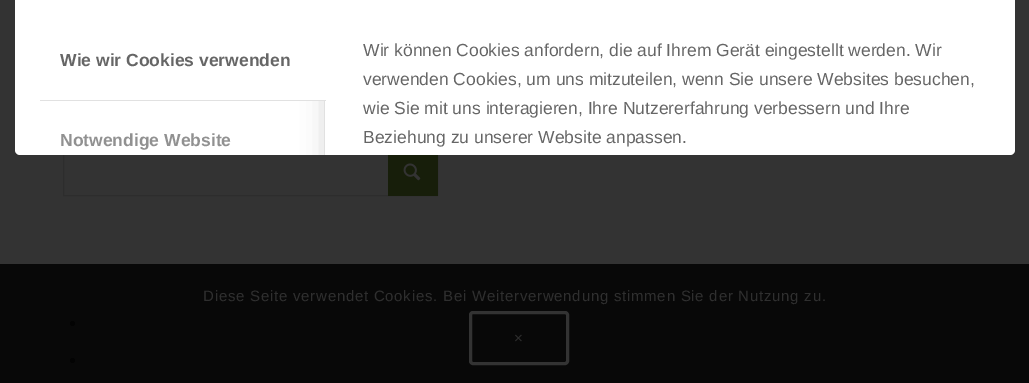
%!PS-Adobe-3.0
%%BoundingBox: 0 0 1029 383
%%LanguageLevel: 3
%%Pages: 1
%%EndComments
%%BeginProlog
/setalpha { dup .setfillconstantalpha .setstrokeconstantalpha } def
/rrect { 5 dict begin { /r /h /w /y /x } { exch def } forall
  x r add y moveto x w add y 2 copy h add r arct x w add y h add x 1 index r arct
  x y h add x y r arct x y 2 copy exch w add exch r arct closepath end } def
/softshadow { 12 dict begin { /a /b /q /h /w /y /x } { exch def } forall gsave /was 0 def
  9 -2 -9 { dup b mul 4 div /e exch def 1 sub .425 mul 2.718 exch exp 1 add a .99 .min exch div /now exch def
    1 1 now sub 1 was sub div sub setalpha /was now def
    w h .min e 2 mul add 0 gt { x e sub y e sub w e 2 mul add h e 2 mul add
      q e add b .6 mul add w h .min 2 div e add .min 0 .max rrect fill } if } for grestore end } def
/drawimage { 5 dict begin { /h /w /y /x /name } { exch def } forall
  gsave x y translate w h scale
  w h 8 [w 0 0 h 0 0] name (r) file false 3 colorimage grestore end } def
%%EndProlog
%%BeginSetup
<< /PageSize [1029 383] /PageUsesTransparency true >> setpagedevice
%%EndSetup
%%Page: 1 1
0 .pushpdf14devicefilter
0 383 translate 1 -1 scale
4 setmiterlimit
0.2 setgray
0 0 1029 383 rectfill
0.176 setgray
63.5 146.5 374 49 rectstroke
1 setgray
15 -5 1000 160 5 rrect fill
0.031 setgray
0 264 1029 119 rectfill
0.09 0.118 0.039 setrgbcolor
388 155 50 41 rectfill
(images/1.raw) 403 163 18 18 drawimage
0.2 setgray
3 setlinewidth
470.5 312.5 97 51 2.5 rrect stroke
gsave
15 -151 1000 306 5 rrect clip newpath
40 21 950 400 rectclip
0 setgray
328 34 640 294 0 12.5 0.2 softshadow
grestore
0.882 setgray
324 100 1 55 rectfill
1 setgray
newpath 327.5 21 moveto 987.5 21 lineto 989 21 990 22 990 23.5 curveto 990 155 lineto 325 155 lineto 325 23.5 lineto 325 22 326 21 327.5 21 curveto closepath fill
newpath 42.5 21 moveto 326 21 lineto 326 101 lineto 40 101 lineto 40 23.5 lineto 40 22 41 21 42.5 21 curveto closepath fill
0.882 setgray
40 100 286 1 rectfill
0.012 setgray
newpath 72.5 323.5 2.5 0 360 arc closepath fill
newpath 72.5 360.5 2.5 0 360 arc closepath fill
/LiberationSans-Bold [17.5 0 0 -17.5 0 0] selectfont
0.4 setgray
60 66 moveto (Wie wir Cookies verwenden) show
0.569 setgray
60 146 moveto (Notwendige Website) show
/LiberationSans-Regular [17.5 0 0 -17.5 0 0] selectfont
0.4 setgray
363 56 moveto (Wir können Cookies anfordern, die auf Ihrem Gerät eingestellt werden. Wir) show
363 85 moveto (verwenden Cookies, um uns mitzuteilen, wenn Sie unsere Websites besuchen,) show
363 114 moveto (wie Sie mit uns interagieren, Ihre Nutzererfahrung verbessern und Ihre) show
363 143 moveto (Beziehung zu unserer Website anpassen.) show
/LiberationSans-Regular [15 0 0 -15 0 0] selectfont
0.184 setgray
203 301 moveto 0.75 0 (Diese Seite verwendet Cookies. Bei Weiterverwendung stimmen Sie der Nutzung zu.) ashow
514 343 moveto 0.75 0 (×) ashow
.poppdf14devicefilter showpage
%%EOF
